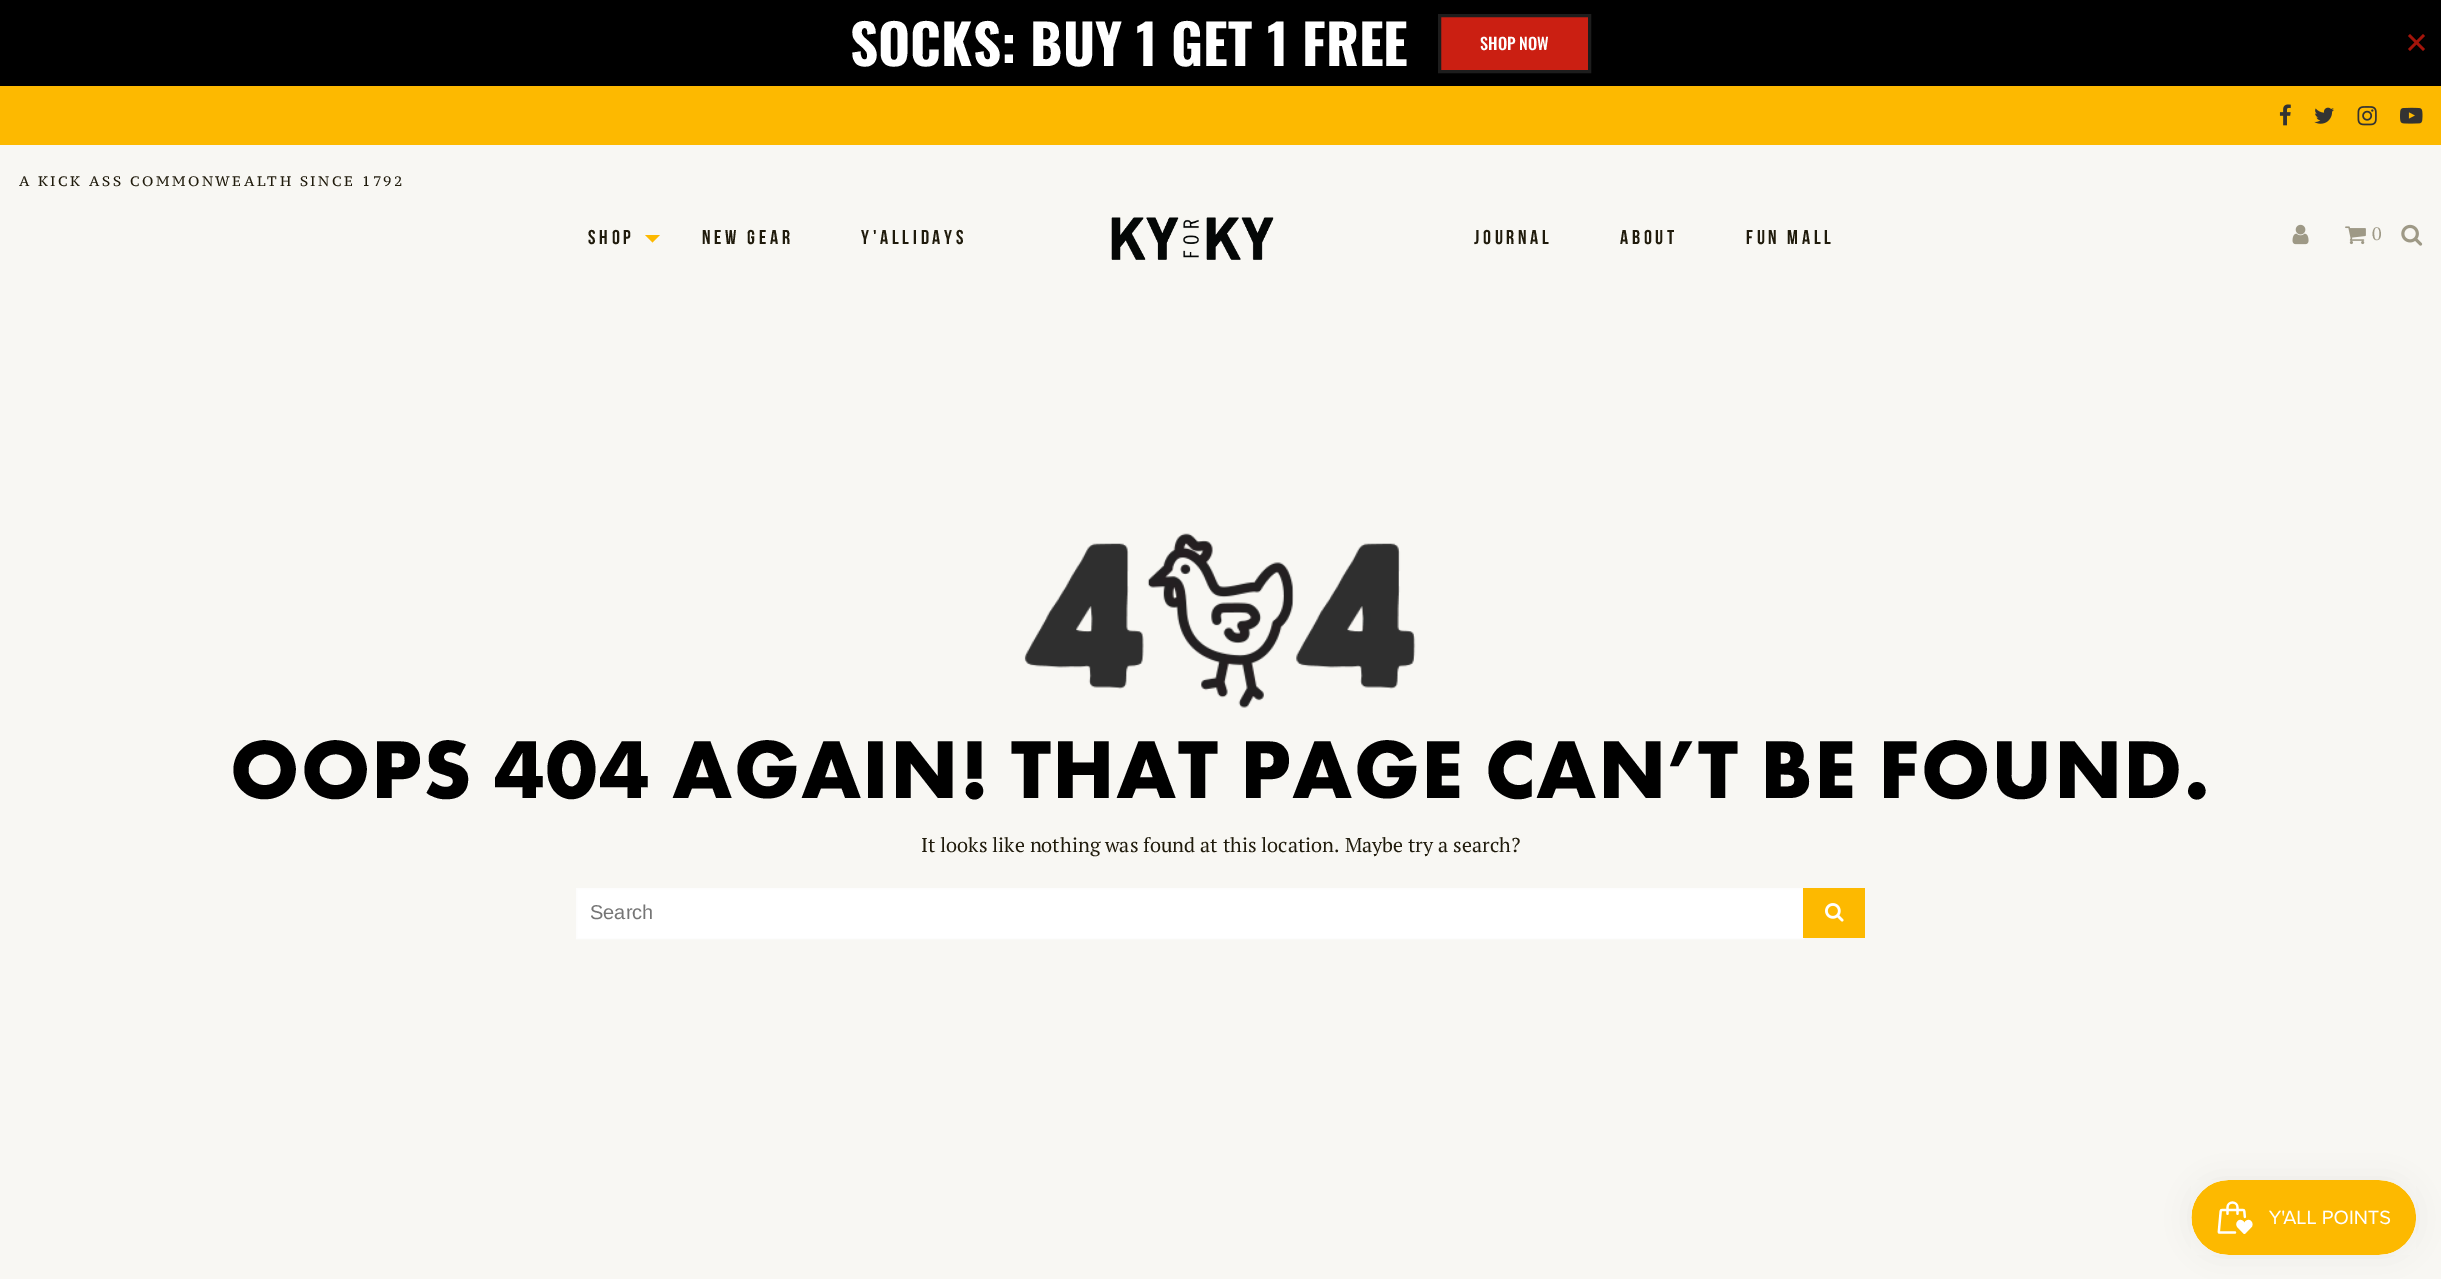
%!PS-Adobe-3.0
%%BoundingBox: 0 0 2441 1279
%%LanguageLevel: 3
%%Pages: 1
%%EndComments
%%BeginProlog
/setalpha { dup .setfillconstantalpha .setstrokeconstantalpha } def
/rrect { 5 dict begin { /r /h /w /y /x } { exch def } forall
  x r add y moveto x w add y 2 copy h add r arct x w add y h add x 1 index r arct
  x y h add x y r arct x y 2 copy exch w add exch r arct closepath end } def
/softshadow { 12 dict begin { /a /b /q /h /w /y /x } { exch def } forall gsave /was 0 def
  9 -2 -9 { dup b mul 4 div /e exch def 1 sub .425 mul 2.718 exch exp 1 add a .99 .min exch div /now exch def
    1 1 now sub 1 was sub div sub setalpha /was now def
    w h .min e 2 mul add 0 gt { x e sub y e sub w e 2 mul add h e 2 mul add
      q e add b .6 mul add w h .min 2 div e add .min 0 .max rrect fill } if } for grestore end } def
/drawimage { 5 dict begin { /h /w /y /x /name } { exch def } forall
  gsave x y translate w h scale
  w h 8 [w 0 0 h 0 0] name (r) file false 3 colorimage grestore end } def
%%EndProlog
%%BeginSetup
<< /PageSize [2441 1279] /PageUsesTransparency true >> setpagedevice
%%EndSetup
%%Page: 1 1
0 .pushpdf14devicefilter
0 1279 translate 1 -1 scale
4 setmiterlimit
0.973 0.969 0.953 setrgbcolor
0 0 2441 1279 rectfill
0 setgray
0 0 2441 86 rectfill
0.796 0.122 0.071 setrgbcolor
newpath 1439.5 15.5 moveto 1589.5 15.5 lineto 1589.5 71.5 lineto 1439.5 71.5 lineto closepath gsave fill grestore
0.114 setgray
3 setlinewidth
stroke
0.639 0.078 0.039 setrgbcolor
2.5 setlinewidth
newpath 2424 35 moveto 2409 50 lineto 2424 50 moveto 2409 35 lineto stroke
0.992 0.725 0 setrgbcolor
0 86 2441 59 rectfill
(images/1.raw) 2279 104 12 22 drawimage
(images/2.raw) 2314 107 20 17 drawimage
(images/3.raw) 2357 106 20 20 drawimage
(images/4.raw) 2400 107 23 17 drawimage
newpath 645 235 moveto 660 235 lineto 652.5 242.5 lineto closepath fill
(images/5.raw) 1111 217 163 43 drawimage
(images/6.raw) 2292 224 17 21 drawimage
(images/7.raw) 2345 226 21 19 drawimage
(images/8.raw) 2401 224 22 22 drawimage
(images/9.raw) 1024 533 392 175 drawimage
1 setgray
newpath 576.5 888.5 moveto 1803.5 888.5 lineto 1803.5 938.5 lineto 576.5 938.5 lineto closepath gsave fill grestore
0.992 setgray
1 setlinewidth
stroke
0.992 0.725 0 setrgbcolor
1803 888 62 50 rectfill
(images/10.raw) 1825 903 19 19 drawimage
0 setgray
2191 1180 225 75 37.5 15.5 0.05 softshadow
(images/11.raw) 2191 1180 225 75 drawimage
/Oswald-Bold [55 0 0 -55 0 0] selectfont
1 setgray
850 66 moveto (SOCKS: BUY 1 GET 1 FREE) show
/Oswald-Medium [16.25 0 0 -16.25 0 0] selectfont
1480 50 moveto (SHOP NOW) show
/PTSerifCaption-Regular [13.75 0 0 -13.75 0 0] selectfont
0.125 0.106 0.047 setrgbcolor
19 186 moveto 2.5 0 (A KICK ASS COMMONWEALTH SINCE 1792) ashow
/BebasNeue-Bold [20 0 0 -20 0 0] selectfont
588 244 moveto 3.75 0 (SHOP) ashow
702 244 moveto 3.75 0 (NEW GEAR) ashow
861 244 moveto 3.75 0 (Y'ALLIDAYS) ashow
1474 244 moveto 3.75 0 (JOURNAL) ashow
1620 244 moveto 3.75 0 (ABOUT) ashow
1746 244 moveto 3.75 0 (FUN MALL) ashow
/PTSerif-Regular [18 0 0 -18 0 0] selectfont
0.62 0.6 0.525 setrgbcolor
2372 240 moveto (0) show
/FuturaPT-Bold [85 0 0 -85 0 0] selectfont
0 setgray
230 798 moveto 1.25 0 (OOPS 404 AGAIN! THAT PAGE CAN’T BE FOUND.) ashow
/PTSerif-Regular [20 0 0 -20 0 0] selectfont
0.125 0.106 0.047 setrgbcolor
921 852 moveto (It looks like nothing was found at this location. Maybe try a search?) show
/LiberationSans-Regular [20 0 0 -20 0 0] selectfont
0.459 setgray
590 919 moveto (Search) show
.poppdf14devicefilter showpage
%%EOF
